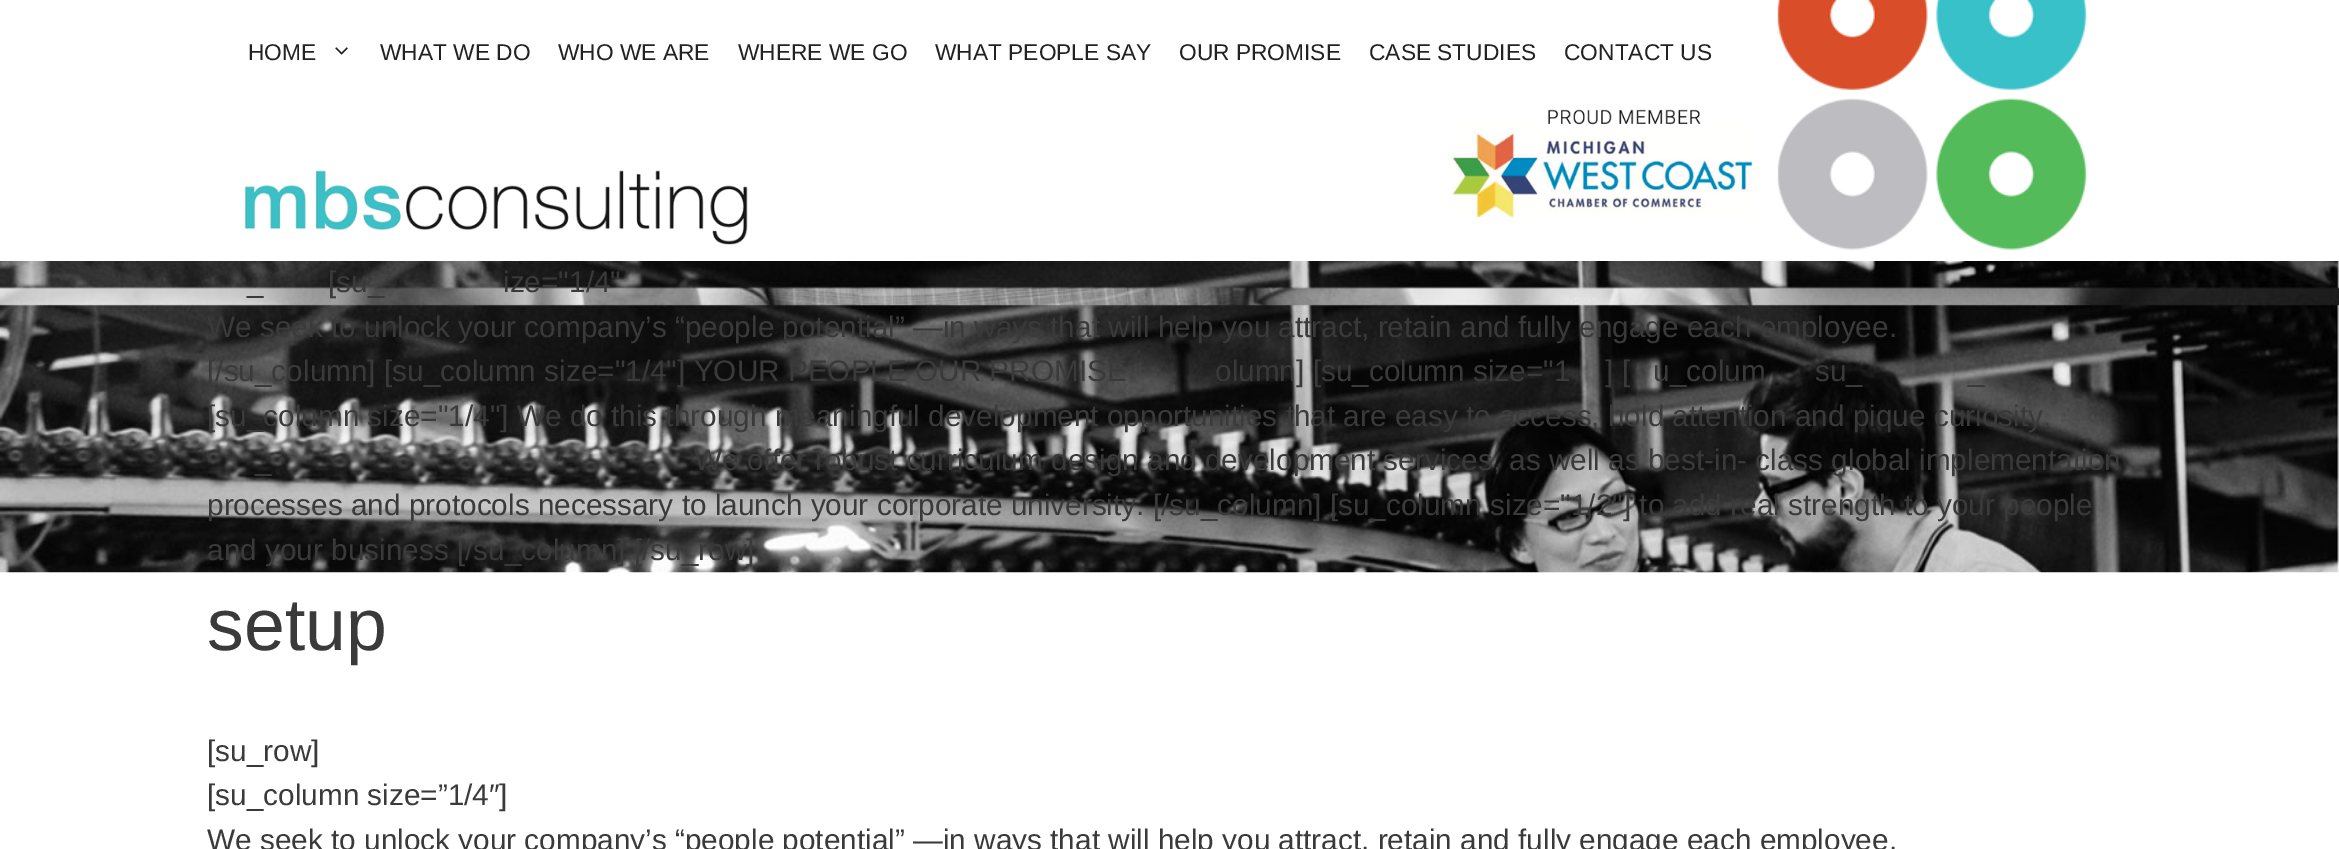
%!PS-Adobe-3.0
%%BoundingBox: 0 0 2339 849
%%LanguageLevel: 3
%%Pages: 1
%%EndComments
%%BeginProlog
/drawimage { 5 dict begin { /h /w /y /x /name } { exch def } forall
  gsave x y translate w h scale
  w h 8 [w 0 0 h 0 0] name (r) file false 3 colorimage grestore end } def
%%EndProlog
%%BeginSetup
<< /PageSize [2339 849] >> setpagedevice
%%EndSetup
%%Page: 1 1
0 849 translate 1 -1 scale
4 setmiterlimit
1 setgray
0 0 2339 849 rectfill
(images/1.raw) 335 47 13 8 drawimage
(images/2.raw) 1777 0 310 250 drawimage
(images/3.raw) 245 170 503 75 drawimage
(images/4.raw) 1453 109 300 109 drawimage
(images/5.raw) 0 261 2339 312 drawimage
/LiberationSans-Regular [22.75 0 0 -22.75 0 0] selectfont
0.133 setgray
248 60 moveto (HOME) show
380 60 moveto (WHAT WE DO) show
558 60 moveto (WHO WE ARE) show
738 60 moveto (WHERE WE GO) show
935 60 moveto (WHAT PEOPLE SAY) show
1179 60 moveto (OUR PROMISE) show
1369 60 moveto (CASE STUDIES) show
1564 60 moveto (CONTACT US) show
/LiberationSans-Regular [29.75 0 0 -29.75 0 0] selectfont
0.227 setgray
328 292 moveto ([su_) show
503 292 moveto (ize="1/4") show
247 292 moveto (_) show
207 337 moveto (We seek to unlock your company’s “people potential” —in ways that will help you attract, retain and fully engage each employee.) show
207 381 moveto ([/su_column] [su_column size="1/4"] YOUR PEOPLE OUR PROMISE) show
1215 381 moveto (olumn] [su_column size="1) show
1605 381 moveto (] [) show
1653 381 moveto (u_colum) show
1815 381 moveto (su_) show
1968 381 moveto (_) show
207 426 moveto ([su_column size="1/4"] We do this through meaningful development opportunities that are easy to access, hold attention and pique curiosity.) show
255 470 moveto (_) show
694 470 moveto (We offer robust curriculum design and development services, as well as best-in- class global implementation) show
207 515 moveto (processes and protocols necessary to launch your corporate university. [/su_column] [su_column size="1/2"] to add real strength to your people) show
207 560 moveto (and your business [/su_column] [/su_row]) show
/LiberationSans-Regular [73.5 0 0 -73.5 0 0] selectfont
207 650 moveto (setup) show
/LiberationSans-Regular [29.75 0 0 -29.75 0 0] selectfont
207 761 moveto ([su_row]) show
207 805 moveto ([su_column size=”1/4″]) show
207 850 moveto (We seek to unlock your company’s “people potential” —in ways that will help you attract, retain and fully engage each employee.) show
showpage
%%EOF
